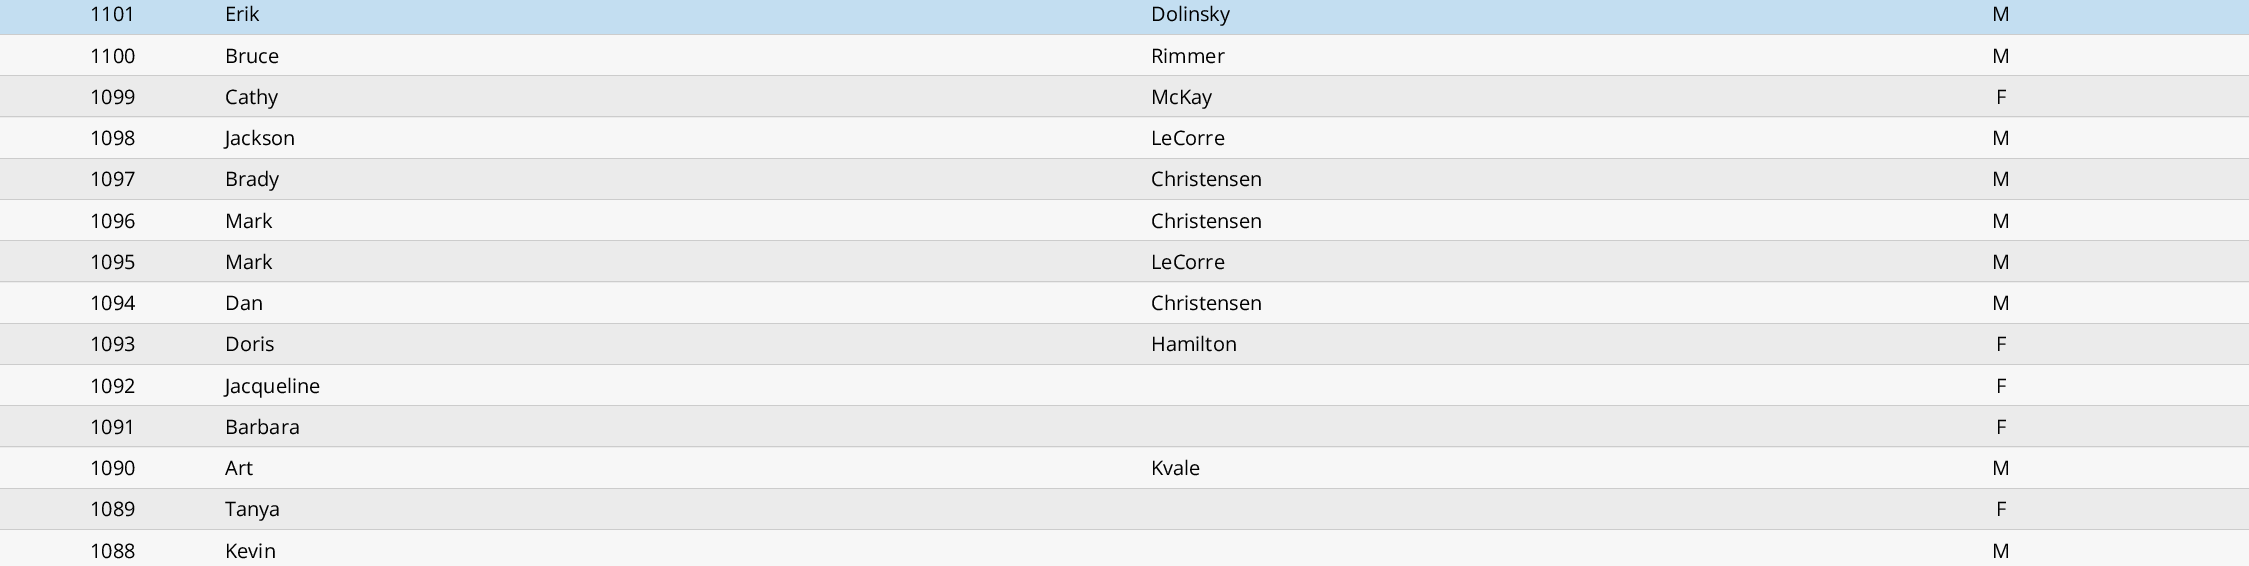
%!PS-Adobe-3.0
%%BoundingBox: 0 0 2249 566
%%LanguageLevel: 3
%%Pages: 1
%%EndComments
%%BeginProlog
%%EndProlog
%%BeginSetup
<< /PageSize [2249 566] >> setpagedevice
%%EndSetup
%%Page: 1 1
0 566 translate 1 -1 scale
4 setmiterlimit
0.765 0.871 0.945 setrgbcolor
0 0 2249 566 rectfill
0.8 setgray
0 34 2249 1 rectfill
0.969 setgray
0 35 2249 40 rectfill
0.8 setgray
0 75 2249 1 rectfill
0.922 setgray
0 76 2249 42 rectfill
0.8 setgray
0 116 2249 1 rectfill
0.969 setgray
0 118 2249 40 rectfill
0.8 setgray
0 158 2249 1 rectfill
0.922 setgray
0 159 2249 40 rectfill
0.8 setgray
0 199 2249 1 rectfill
0.969 setgray
0 200 2249 40 rectfill
0.8 setgray
0 240 2249 1 rectfill
0.922 setgray
0 241 2249 42 rectfill
0.8 setgray
0 281 2249 1 rectfill
0.969 setgray
0 283 2249 40 rectfill
0.8 setgray
0 323 2249 1 rectfill
0.922 setgray
0 324 2249 40 rectfill
0.8 setgray
0 364 2249 1 rectfill
0.969 setgray
0 365 2249 40 rectfill
0.8 setgray
0 405 2249 1 rectfill
0.922 setgray
0 406 2249 42 rectfill
0.8 setgray
0 446 2249 1 rectfill
0.969 setgray
0 448 2249 40 rectfill
0.8 setgray
0 488 2249 1 rectfill
0.922 setgray
0 489 2249 40 rectfill
0.8 setgray
0 529 2249 1 rectfill
0.969 setgray
0 530 2249 36 rectfill
/OpenSans-Regular [20 0 0 -20 0 0] selectfont
0 setgray
90 21 moveto (1101) show
225 21 moveto (Erik) show
1151 21 moveto (Dolinsky) show
1992 21 moveto (M) show
90 63 moveto (1100) show
225 63 moveto (Bruce) show
1151 63 moveto (Rimmer) show
1992 63 moveto (M) show
90 104 moveto (1099) show
225 104 moveto (Cathy) show
1151 104 moveto (McKay) show
1996 104 moveto (F) show
90 145 moveto (1098) show
225 145 moveto (Jackson) show
1151 145 moveto (LeCorre) show
1992 145 moveto (M) show
90 186 moveto (1097) show
225 186 moveto (Brady) show
1151 186 moveto (Christensen) show
1992 186 moveto (M) show
90 228 moveto (1096) show
225 228 moveto (Mark) show
1151 228 moveto (Christensen) show
1992 228 moveto (M) show
90 269 moveto (1095) show
225 269 moveto (Mark) show
1151 269 moveto (LeCorre) show
1992 269 moveto (M) show
90 310 moveto (1094) show
225 310 moveto (Dan) show
1151 310 moveto (Christensen) show
1992 310 moveto (M) show
90 351 moveto (1093) show
225 351 moveto (Doris) show
1151 351 moveto (Hamilton) show
1996 351 moveto (F) show
90 393 moveto (1092) show
225 393 moveto (Jacqueline) show
1996 393 moveto (F) show
90 434 moveto (1091) show
225 434 moveto (Barbara) show
1996 434 moveto (F) show
90 475 moveto (1090) show
225 475 moveto (Art) show
1151 475 moveto (Kvale) show
1992 475 moveto (M) show
90 516 moveto (1089) show
225 516 moveto (Tanya) show
1996 516 moveto (F) show
90 558 moveto (1088) show
225 558 moveto (Kevin) show
1992 558 moveto (M) show
showpage
%%EOF
